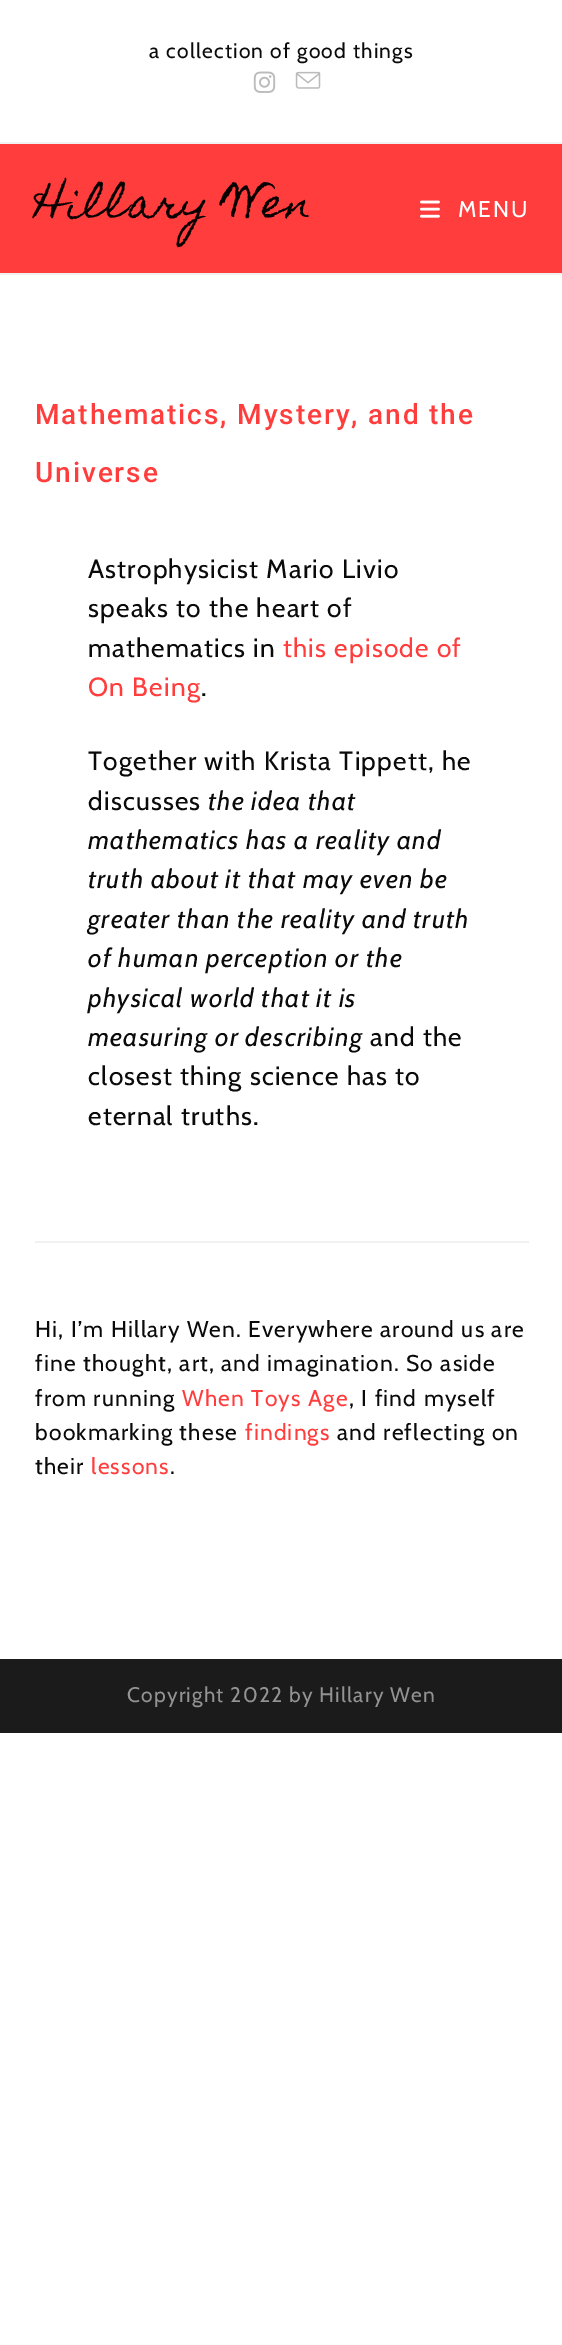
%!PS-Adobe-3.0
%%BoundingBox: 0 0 562 2345
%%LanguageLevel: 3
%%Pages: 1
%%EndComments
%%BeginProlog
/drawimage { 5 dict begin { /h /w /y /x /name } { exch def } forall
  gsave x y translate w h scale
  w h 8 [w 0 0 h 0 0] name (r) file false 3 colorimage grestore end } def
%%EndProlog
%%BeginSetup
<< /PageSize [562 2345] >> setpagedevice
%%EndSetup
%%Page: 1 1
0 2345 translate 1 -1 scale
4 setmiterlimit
1 setgray
0 0 562 2345 rectfill
0.945 setgray
0 142 562 2 rectfill
(images/1.raw) 253 71 23 22 drawimage
(images/2.raw) 295 71 26 18 drawimage
1 0.239 0.239 setrgbcolor
0 144 562 129 rectfill
0.945 setgray
0 273 562 2 rectfill
(images/3.raw) 420 200 20 18 drawimage
35 1241 494 2 rectfill
0.106 setgray
0 1659 562 74 rectfill
/Cabin-Regular [21 0 0 -21 0 0] selectfont
0.039 setgray
149 58 moveto 1.2 0 (a collection of good things) ashow
/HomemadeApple-Regular [40.25 0 0 -40.25 0 0] selectfont
0.039 0.008 0.008 setrgbcolor
35 217 moveto 1.2 0 (Hillary Wen) ashow
/Cabin-Regular [22.75 0 0 -22.75 0 0] selectfont
1 setgray
458 217 moveto 2 0 (MENU) ashow
/Roboto-Medium [28 0 0 -28 0 0] selectfont
1 0.239 0.239 setrgbcolor
35 424 moveto 1.9 0 (Mathematics, Mystery, and the) ashow
35 482 moveto 1.9 0 (Universe) ashow
/Cabin-Regular [26.25 0 0 -26.25 0 0] selectfont
0.039 setgray
88 578 moveto 1.2 0 (Astrophysicist Mario Livio) ashow
88 617 moveto 1.2 0 (speaks to the heart of) ashow
88 657 moveto 1.2 0 (mathematics in) ashow
1 0.239 0.239 setrgbcolor
283 657 moveto 1.2 0 (this episode of) ashow
88 696 moveto 1.2 0 (On Being) ashow
0.039 setgray
201 696 moveto 1.2 0 (.) ashow
88 770 moveto 1.2 0 (Together with Krista Tippett, he) ashow
88 810 moveto 1.2 0 (discusses) ashow
/Cabin-Italic [26.25 0 0 -26.25 0 0] selectfont
208 810 moveto 1.2 0 (the idea that) ashow
88 849 moveto 1.2 0 (mathematics has a reality and) ashow
88 888 moveto 1.2 0 (truth about it that may even be) ashow
88 928 moveto 1.2 0 (greater than the reality and truth) ashow
88 967 moveto 1.2 0 (of human perception or the) ashow
88 1007 moveto 1.2 0 (physical world that it is) ashow
88 1046 moveto 1.2 0 (measuring or describing) ashow
/Cabin-Regular [26.25 0 0 -26.25 0 0] selectfont
370 1046 moveto 1.2 0 (and the) ashow
88 1085 moveto 1.2 0 (closest thing science has to) ashow
88 1125 moveto 1.2 0 (eternal truths.) ashow
/Cabin-Regular [22.75 0 0 -22.75 0 0] selectfont
35 1337 moveto 1.2 0 (Hi, I’m Hillary Wen. Everywhere around us are) ashow
35 1371 moveto 1.2 0 (fine thought, art, and imagination. So aside) ashow
35 1406 moveto 1.2 0 (from running) ashow
1 0.239 0.239 setrgbcolor
182 1406 moveto 1.2 0 (When Toys Age) ashow
0.039 setgray
349 1406 moveto 1.2 0 (, I find myself) ashow
35 1440 moveto 1.2 0 (bookmarking these) ashow
1 0.239 0.239 setrgbcolor
245 1440 moveto 1.2 0 (findings) ashow
0.039 setgray
337 1440 moveto 1.2 0 (and reflecting on) ashow
35 1474 moveto 1.2 0 (their) ashow
1 0.239 0.239 setrgbcolor
91 1474 moveto 1.2 0 (lessons) ashow
0.039 setgray
170 1474 moveto 1.2 0 (.) ashow
/Cabin-Regular [21 0 0 -21 0 0] selectfont
0.576 setgray
127 1702 moveto 1.2 0 (Copyright 2022 by Hillary Wen) ashow
showpage
%%EOF
